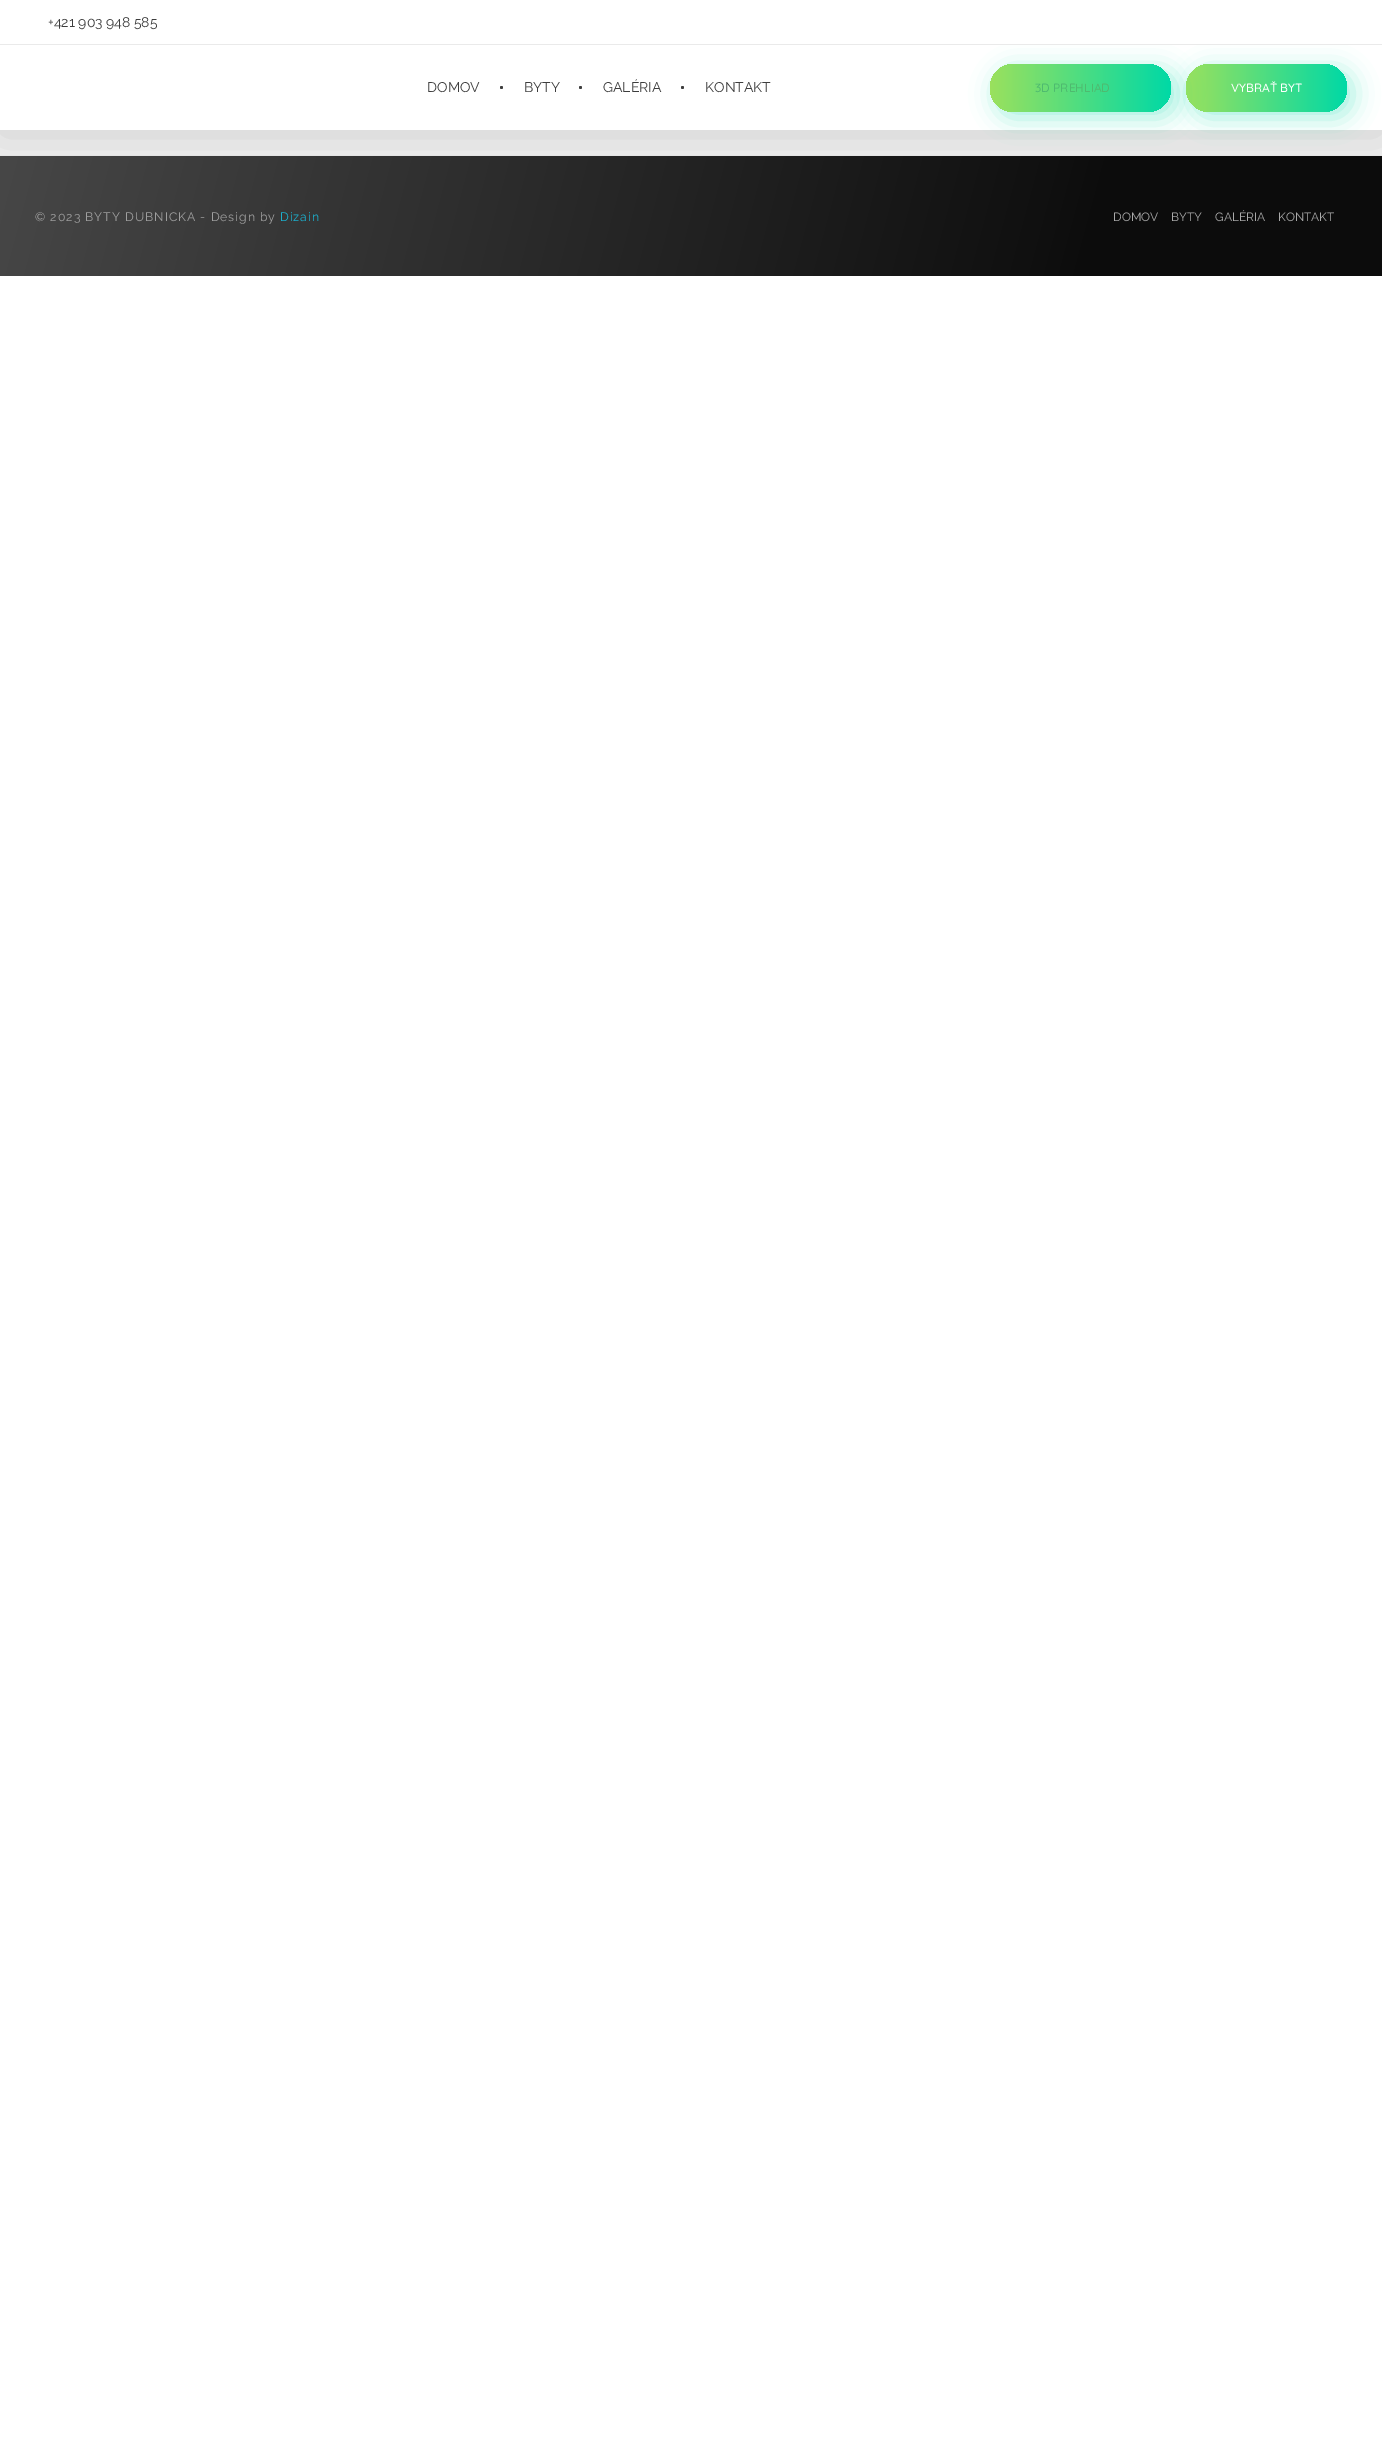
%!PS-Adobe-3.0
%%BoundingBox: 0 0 1382 2456
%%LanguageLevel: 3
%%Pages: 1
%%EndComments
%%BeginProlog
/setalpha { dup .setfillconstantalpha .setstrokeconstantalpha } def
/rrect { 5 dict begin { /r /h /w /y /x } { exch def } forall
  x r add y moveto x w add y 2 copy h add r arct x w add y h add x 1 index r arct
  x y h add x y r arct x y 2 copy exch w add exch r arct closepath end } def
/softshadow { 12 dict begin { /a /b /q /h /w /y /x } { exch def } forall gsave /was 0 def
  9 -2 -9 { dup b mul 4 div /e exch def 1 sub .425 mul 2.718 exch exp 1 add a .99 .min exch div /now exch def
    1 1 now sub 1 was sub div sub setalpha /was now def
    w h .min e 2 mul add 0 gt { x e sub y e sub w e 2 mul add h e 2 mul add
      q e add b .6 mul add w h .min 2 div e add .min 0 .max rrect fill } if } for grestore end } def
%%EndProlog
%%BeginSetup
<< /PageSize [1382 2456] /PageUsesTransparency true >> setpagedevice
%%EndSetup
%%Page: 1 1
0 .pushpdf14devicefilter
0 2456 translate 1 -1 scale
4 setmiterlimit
1 setgray
0 0 1382 2456 rectfill
0.937 setgray
0 130 1382 25 rectfill
gsave newpath 0 156 moveto 1382 156 lineto 1382 276 lineto 0 276 lineto closepath clip newpath
<< /ShadingType 2 /ColorSpace /DeviceRGB /Coords [1351 393 31 39] /Extend [true true] /Function << /FunctionType 3 /Domain [0 1] /Functions [<< /FunctionType 2 /Domain [0 1] /C0 [0.047 0.047 0.047] /C1 [0.047 0.047 0.047] /N 1 >> << /FunctionType 2 /Domain [0 1] /C0 [0.047 0.047 0.047] /C1 [0.278 0.278 0.278] /N 1 >>] /Bounds [0.2] /Encode [0 1 0 1] >> >> shfill grestore
0.918 setgray
0 155 1382 1 rectfill
gsave
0 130 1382 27 rectclip
0 setgray
0 49 1382 85 0 22 0.14 softshadow
grestore
0 0.851 0.651 setrgbcolor
1192 70 161 48 24 12.5 0.35 softshadow
gsave 1186 64 161 48 24 rrect clip newpath
<< /ShadingType 2 /ColorSpace /DeviceRGB /Coords [1347 86 1186 89] /Extend [true true] /Function << /FunctionType 2 /Domain [0 1] /C0 [0 0.851 0.651] /C1 [0.608 0.882 0.365] /N 1 >> >> shfill grestore
996 70 181 48 24 12.5 0.35 softshadow
1 setgray
0 17 1382 27 rectfill
0.918 setgray
0 44 1382 1 rectfill
0.239 setgray
newpath 501.5 87.5 1.5 0 360 arc closepath fill
newpath 580.5 87.5 1.5 0 360 arc closepath fill
newpath 682.5 87.5 1.5 0 360 arc closepath fill
gsave 990 64 181 48 24 rrect clip newpath
<< /ShadingType 2 /ColorSpace /DeviceRGB /Coords [1171 86 990 89] /Extend [true true] /Function << /FunctionType 2 /Domain [0 1] /C0 [0 0.851 0.651] /C1 [0.608 0.882 0.365] /N 1 >> >> shfill grestore
/Raleway-Regular [14 0 0 -14 0 0] selectfont
48 27 moveto (+421 903 948 585) show
427 92 moveto (DOMOV) show
524 92 moveto (BYTY) show
603 92 moveto (GALÉRIA) show
705 92 moveto (KONTAKT) show
/Quicksand-Medium [12 0 0 -12 0 0] selectfont
0.306 0.729 0.435 setrgbcolor
1035 92 moveto (3D PREHLIAD) show
1 setgray
1231 92 moveto (VYBRAŤ BYT) show
/Raleway-Regular [12.25 0 0 -12.25 0 0] selectfont
0.624 setgray
35 221 moveto 1 0 (© 2023 BYTY DUBNICKA - Design by) ashow
0.106 0.69 0.808 setrgbcolor
280 221 moveto 1 0 (Dizain) ashow
/Raleway-Regular [12 0 0 -12 0 0] selectfont
0.667 setgray
1113 221 moveto (DOMOV) show
1171 221 moveto (BYTY) show
1215 221 moveto (GALÉRIA) show
1278 221 moveto (KONTAKT) show
.poppdf14devicefilter showpage
%%EOF
